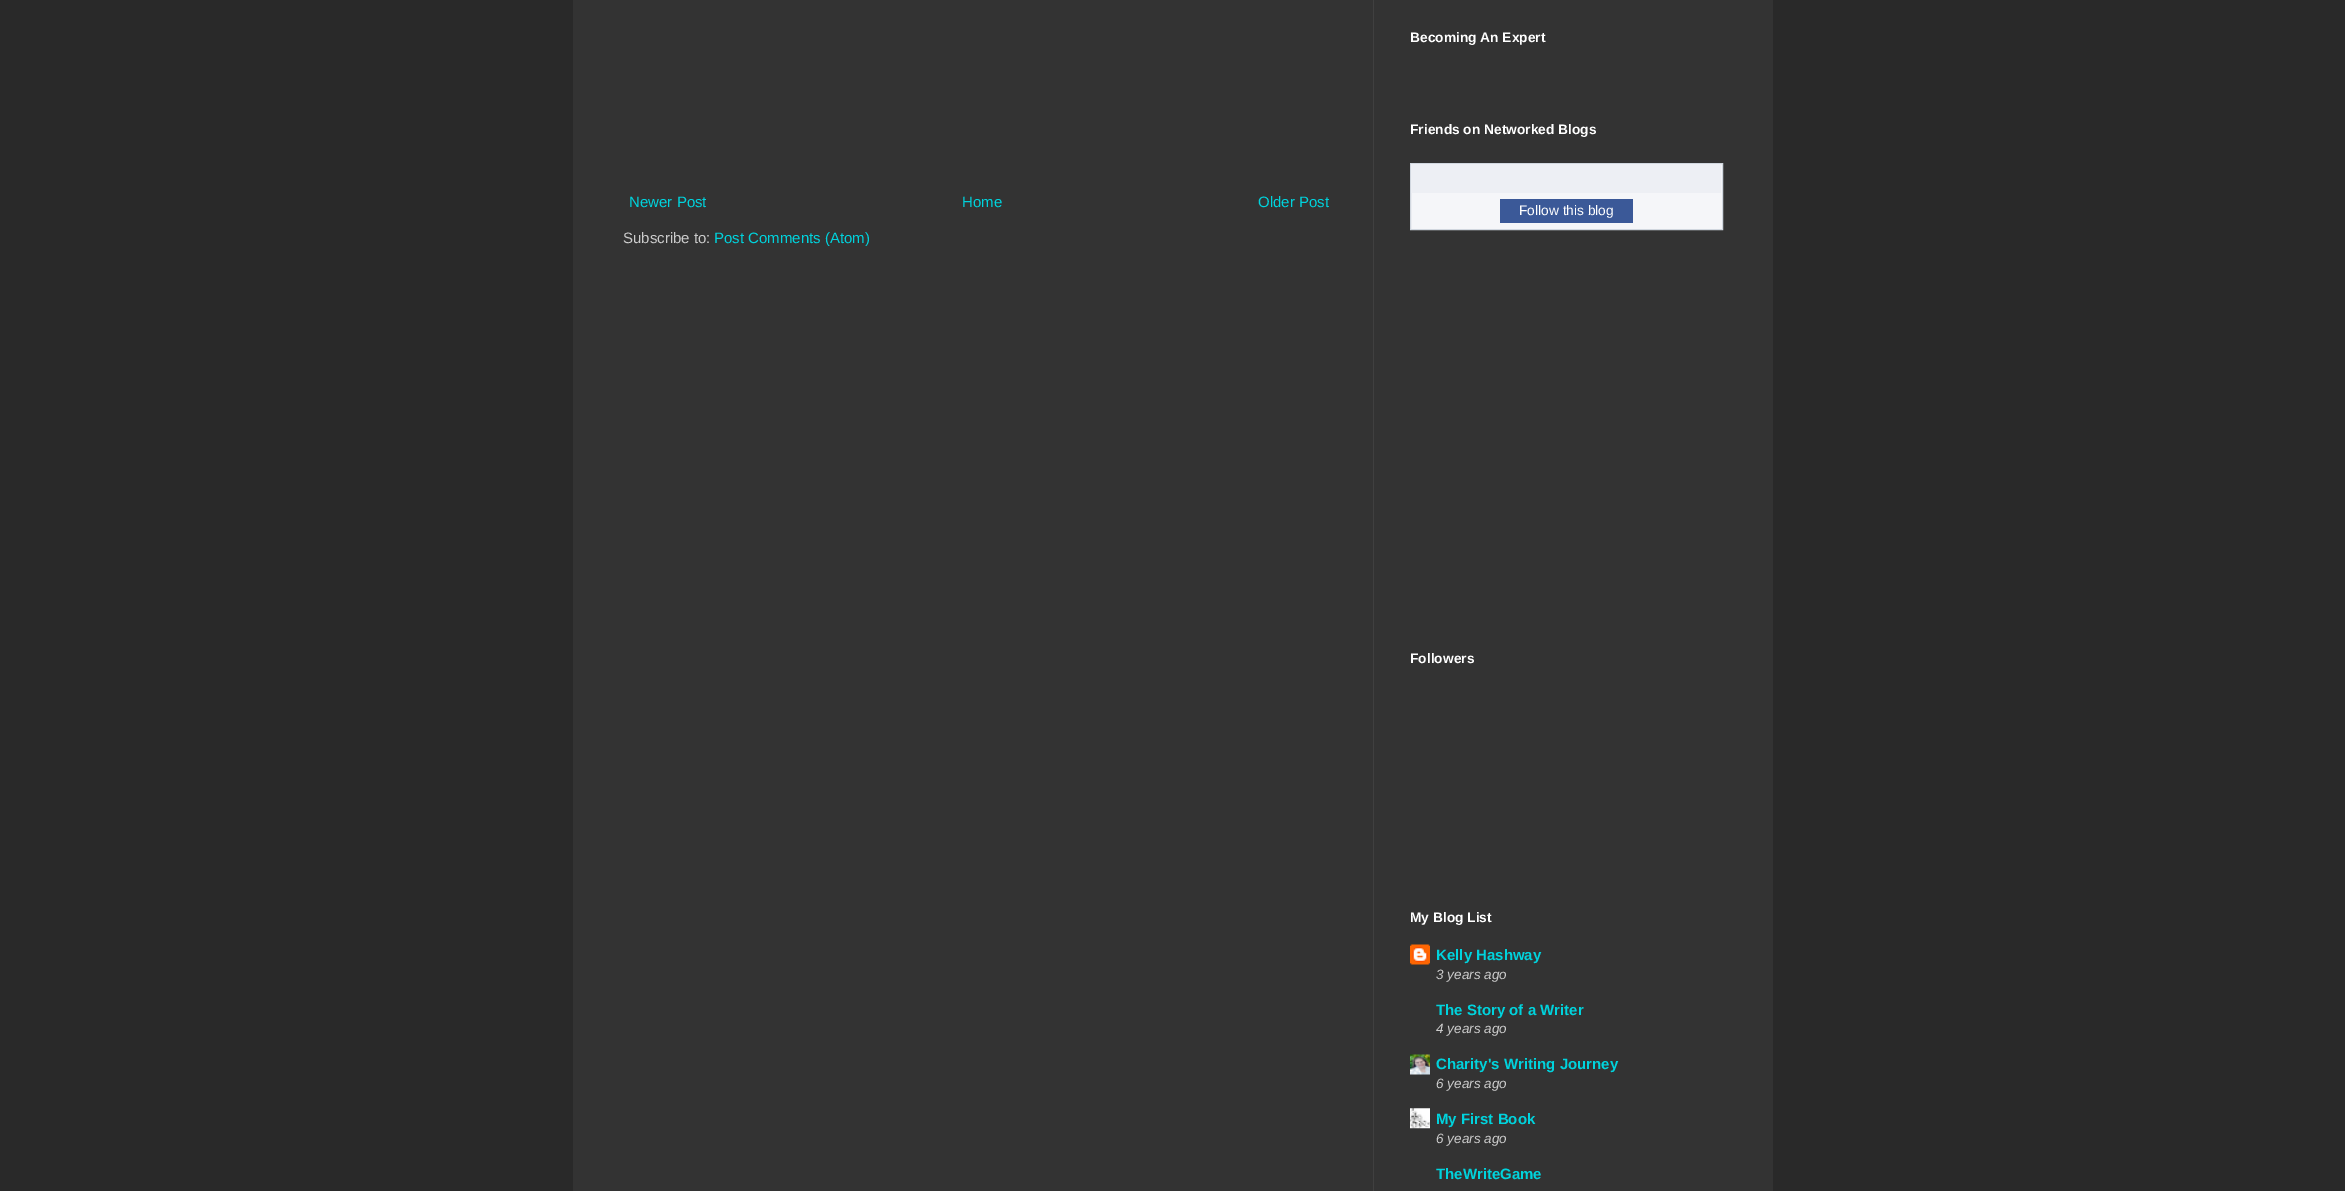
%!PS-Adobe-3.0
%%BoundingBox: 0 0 2345 1191
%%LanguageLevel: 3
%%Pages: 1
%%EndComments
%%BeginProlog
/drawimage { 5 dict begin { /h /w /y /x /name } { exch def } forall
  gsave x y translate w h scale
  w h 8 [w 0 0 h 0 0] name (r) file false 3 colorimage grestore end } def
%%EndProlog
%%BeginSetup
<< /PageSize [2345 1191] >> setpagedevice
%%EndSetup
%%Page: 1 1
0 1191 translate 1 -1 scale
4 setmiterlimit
0.161 setgray
0 0 2345 1191 rectfill
0.2 setgray
573 0 1200 1191 rectfill
0.251 setgray
1373 0 1 1191 rectfill
0.961 0.965 0.976 setrgbcolor
newpath 1410.5 163.5 moveto 1722.5 163.5 lineto 1722.5 229.5 lineto 1410.5 229.5 lineto closepath gsave fill grestore
0.82 0.843 0.875 setrgbcolor
stroke
0.929 0.937 0.957 setrgbcolor
1411 164 310 29 rectfill
0.231 0.349 0.596 setrgbcolor
1500 199 133 24 rectfill
(images/1.raw) 1410 944 20 21 drawimage
(images/2.raw) 1410 1054 20 21 drawimage
(images/3.raw) 1410 1108 20 21 drawimage
/LiberationSans-Regular [15 0 0 -15 0 0] selectfont
0 0.827 0.867 setrgbcolor
629 207 moveto (Newer Post) show
962 207 moveto (Home) show
1258 207 moveto (Older Post) show
0.8 setgray
623 243 moveto (Subscribe to:) show
0 0.827 0.867 setrgbcolor
714 243 moveto (Post Comments \(Atom\)) show
/LiberationSans-Bold [13.75 0 0 -13.75 0 0] selectfont
1 setgray
1410 42 moveto (Becoming An Expert) show
1410 134 moveto (Friends on Networked Blogs) show
/LiberationSans-Regular [13.75 0 0 -13.75 0 0] selectfont
1519 215 moveto (Follow this blog) show
/LiberationSans-Bold [13.75 0 0 -13.75 0 0] selectfont
1410 663 moveto (Followers) show
1410 922 moveto (My Blog List) show
/LiberationSans-Bold [15 0 0 -15 0 0] selectfont
0 0.827 0.867 setrgbcolor
1436 960 moveto (Kelly Hashway) show
/LiberationSans-Italic [13.5 0 0 -13.5 0 0] selectfont
0.8 setgray
1436 979 moveto (3 years ago) show
/LiberationSans-Bold [15 0 0 -15 0 0] selectfont
0 0.827 0.867 setrgbcolor
1436 1015 moveto (The Story of a Writer) show
/LiberationSans-Italic [13.5 0 0 -13.5 0 0] selectfont
0.8 setgray
1436 1033 moveto (4 years ago) show
/LiberationSans-Bold [15 0 0 -15 0 0] selectfont
0 0.827 0.867 setrgbcolor
1436 1069 moveto (Charity's Writing Journey) show
/LiberationSans-Italic [13.5 0 0 -13.5 0 0] selectfont
0.8 setgray
1436 1088 moveto (6 years ago) show
/LiberationSans-Bold [15 0 0 -15 0 0] selectfont
0 0.827 0.867 setrgbcolor
1436 1124 moveto (My First Book) show
/LiberationSans-Italic [13.5 0 0 -13.5 0 0] selectfont
0.8 setgray
1436 1143 moveto (6 years ago) show
/LiberationSans-Bold [15 0 0 -15 0 0] selectfont
0 0.827 0.867 setrgbcolor
1436 1179 moveto (TheWriteGame) show
showpage
%%EOF
